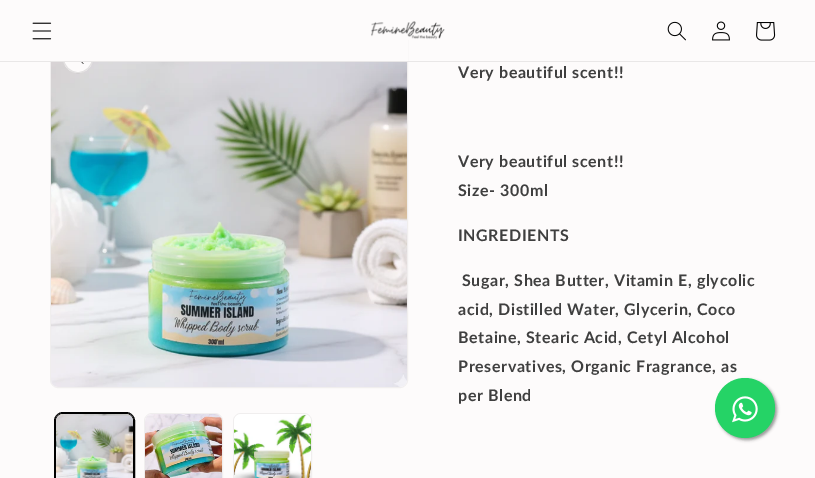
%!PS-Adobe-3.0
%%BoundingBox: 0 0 815 478
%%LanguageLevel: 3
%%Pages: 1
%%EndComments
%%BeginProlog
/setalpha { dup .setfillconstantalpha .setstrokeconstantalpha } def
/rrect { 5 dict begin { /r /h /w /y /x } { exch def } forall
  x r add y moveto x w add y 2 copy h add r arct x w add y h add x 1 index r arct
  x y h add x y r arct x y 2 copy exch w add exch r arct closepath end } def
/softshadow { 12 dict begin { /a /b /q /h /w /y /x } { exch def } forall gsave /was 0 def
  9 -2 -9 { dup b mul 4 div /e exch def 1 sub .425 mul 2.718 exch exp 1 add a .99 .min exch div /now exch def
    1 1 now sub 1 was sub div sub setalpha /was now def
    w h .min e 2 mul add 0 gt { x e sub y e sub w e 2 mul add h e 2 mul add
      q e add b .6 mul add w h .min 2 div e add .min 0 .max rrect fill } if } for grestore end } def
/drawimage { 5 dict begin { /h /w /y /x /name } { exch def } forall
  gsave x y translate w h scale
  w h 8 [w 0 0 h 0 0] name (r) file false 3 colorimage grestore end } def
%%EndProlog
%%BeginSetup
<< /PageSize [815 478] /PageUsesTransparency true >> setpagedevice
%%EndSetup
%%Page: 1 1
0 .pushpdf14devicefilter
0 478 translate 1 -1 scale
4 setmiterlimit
0.992 0.984 0.984 setrgbcolor
0 0 815 478 rectfill
0.941 0.933 0.933 setrgbcolor
50.5 30.5 357 357 7.5 rrect stroke
(images/7.raw) 51 62 356 325 drawimage
0.992 0.984 0.984 setrgbcolor
newpath 78 58 15 0 360 arc closepath fill
0.1 setalpha
0 setgray
newpath 78 58 14.5 0 360 arc closepath stroke
1 setalpha
0.992 0.984 0.984 setrgbcolor
50 30 358 31 rectfill
0.914 0.906 0.906 setrgbcolor
0 61 815 1 rectfill
(images/1.raw) 32 22 20 18 drawimage
(images/2.raw) 371 21 74 19 drawimage
(images/3.raw) 667 21 19 20 drawimage
(images/4.raw) 712 21 18 20 drawimage
(images/5.raw) 756 22 20 19 drawimage
(images/6.raw) 81 62 3 2 drawimage
0 setgray
54.5 412.5 80 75 8.5 rrect stroke
55.5 413.5 78 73 7.5 rrect stroke
(images/8.raw) 56 414 77 64 drawimage
0.941 0.933 0.933 setrgbcolor
144.5 413.5 78 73 7.5 rrect stroke
(images/9.raw) 145 414 77 64 drawimage
233.5 413.5 78 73 7.5 rrect stroke
(images/10.raw) 234 414 77 64 drawimage
0.6 setgray
717 380 60 60 30 1.5 1 softshadow
0.145 0.827 0.4 setrgbcolor
newpath 745 408 30 0 360 arc closepath fill
(images/11.raw) 732 396 26 27 drawimage
/Lato-Bold [16 0 0 -16 0 0] selectfont
0.247 setgray
458 78 moveto 0.6 0 (Very beautiful scent!!) ashow
458 167 moveto 0.6 0 (Very beautiful scent!!) ashow
458 196 moveto 0.6 0 (Size- 300ml) ashow
458 241 moveto 0.6 0 (INGREDIENTS) ashow
462 286 moveto 0.6 0 (Sugar, Shea Butter, Vitamin E, glycolic) ashow
458 315 moveto 0.6 0 (acid, Distilled Water, Glycerin, Coco) ashow
458 343 moveto 0.6 0 (Betaine, Stearic Acid, Cetyl Alcohol) ashow
458 372 moveto 0.6 0 (Preservatives, Organic Fragrance, as) ashow
458 401 moveto 0.6 0 (per Blend) ashow
.poppdf14devicefilter showpage
%%EOF
